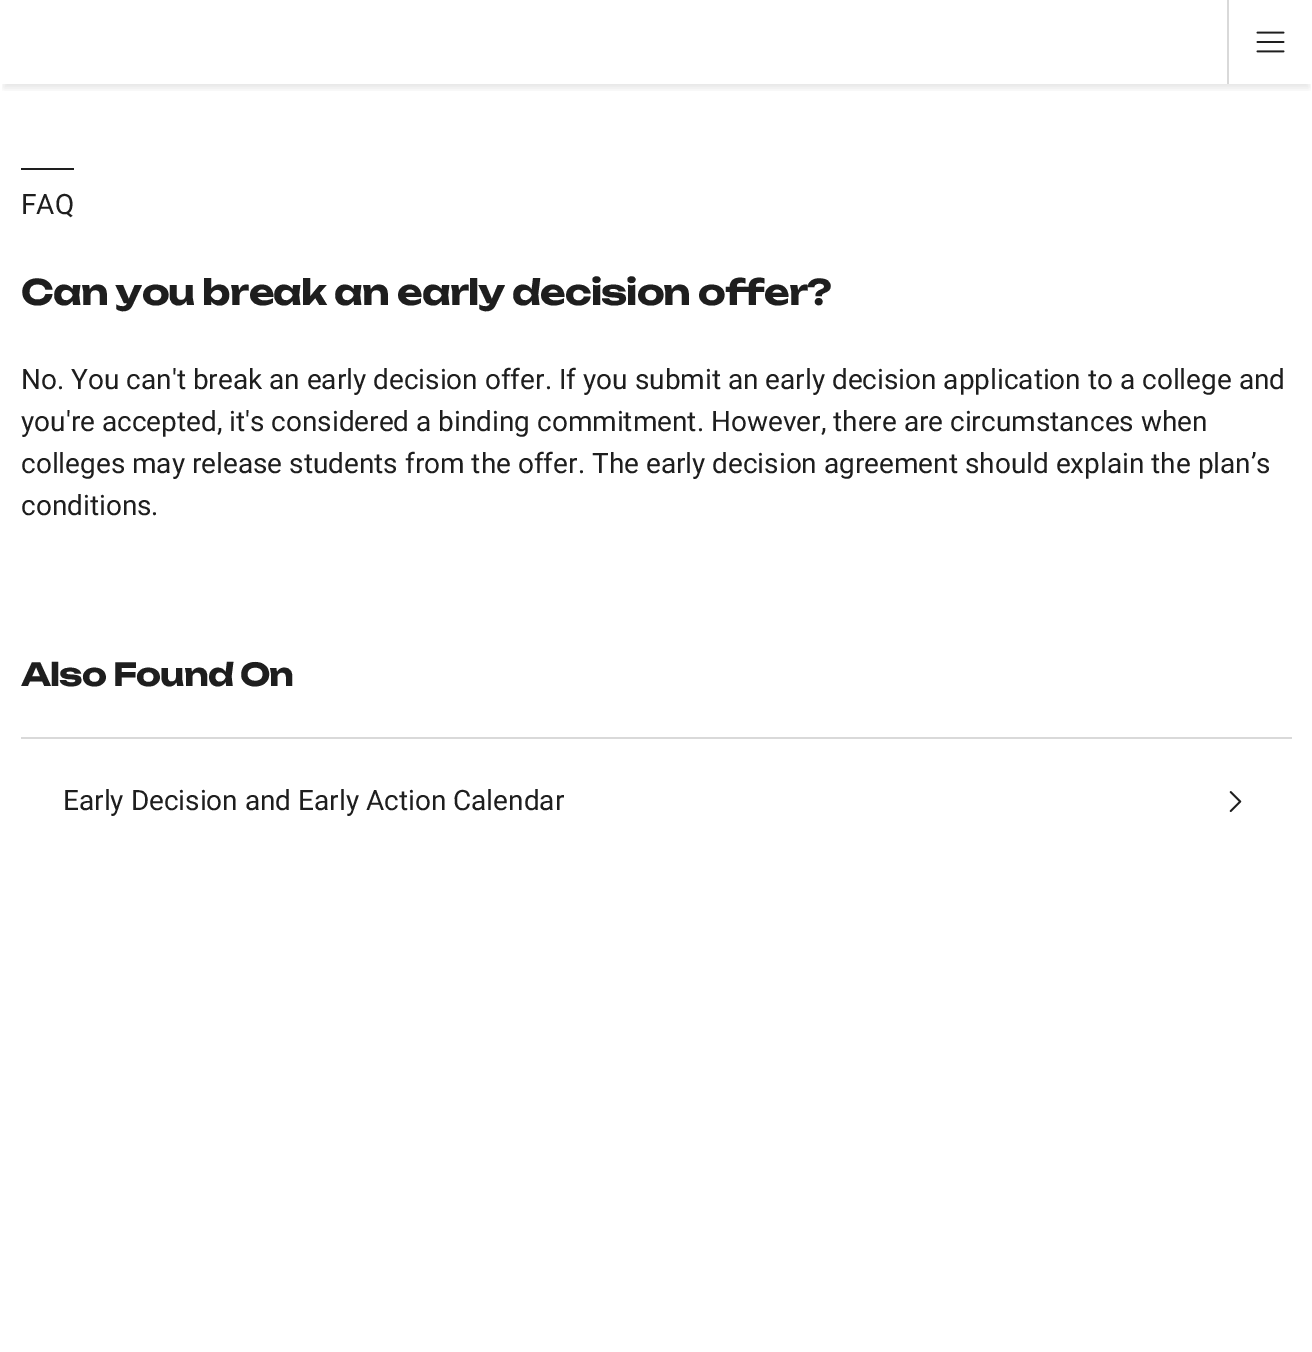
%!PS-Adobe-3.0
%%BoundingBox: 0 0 1312 1352
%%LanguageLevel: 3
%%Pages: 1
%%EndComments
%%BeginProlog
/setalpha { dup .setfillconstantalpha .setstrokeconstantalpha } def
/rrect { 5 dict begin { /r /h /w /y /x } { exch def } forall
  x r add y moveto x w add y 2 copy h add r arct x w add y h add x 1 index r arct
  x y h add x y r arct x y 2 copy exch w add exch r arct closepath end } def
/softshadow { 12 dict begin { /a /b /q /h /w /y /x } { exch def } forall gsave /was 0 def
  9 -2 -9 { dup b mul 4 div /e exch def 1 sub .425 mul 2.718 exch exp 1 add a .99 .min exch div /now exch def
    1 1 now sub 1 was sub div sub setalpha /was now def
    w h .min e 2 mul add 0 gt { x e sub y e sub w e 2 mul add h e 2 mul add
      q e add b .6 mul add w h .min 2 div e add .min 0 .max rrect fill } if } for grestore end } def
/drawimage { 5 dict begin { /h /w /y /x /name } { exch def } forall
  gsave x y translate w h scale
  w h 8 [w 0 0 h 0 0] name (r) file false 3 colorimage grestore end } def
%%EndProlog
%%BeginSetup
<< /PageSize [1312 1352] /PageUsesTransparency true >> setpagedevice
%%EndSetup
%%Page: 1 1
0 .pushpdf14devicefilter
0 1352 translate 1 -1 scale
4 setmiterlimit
1 setgray
0 0 1312 1352 rectfill
gsave
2 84 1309 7 rectclip
0 setgray
4 11 1305 77 0 3.5 0.1 softshadow
grestore
0.851 setgray
1227 0 2 84 rectfill
(images/1.raw) 1256 31 29 22 drawimage
0.118 setgray
21 168 53 2 rectfill
0.851 setgray
21 737 1271 2 rectfill
(images/2.raw) 1229 791 13 22 drawimage
/Roboto-Regular [28 0 0 -28 0 0] selectfont
0.118 setgray
21 214 moveto (FAQ) show
/Unbounded-Bold [35 0 0 -35 0 0] selectfont
21 305 moveto -0.9 0 (Can you break an early decision offer?) ashow
/Roboto-Regular [28 0 0 -28 0 0] selectfont
21 389 moveto (No. You can't break an early decision offer. If you submit an early decision application to a college and) show
21 431 moveto (you're accepted, it's considered a binding commitment. However, there are circumstances when) show
21 473 moveto (colleges may release students from the offer. The early decision agreement should explain the plan’s) show
21 515 moveto (conditions.) show
/Unbounded-Bold [31.5 0 0 -31.5 0 0] selectfont
21 686 moveto -0.9 0 (Also Found On) ashow
/Roboto-Regular [28 0 0 -28 0 0] selectfont
63 810 moveto (Early Decision and Early Action Calendar) show
.poppdf14devicefilter showpage
%%EOF
